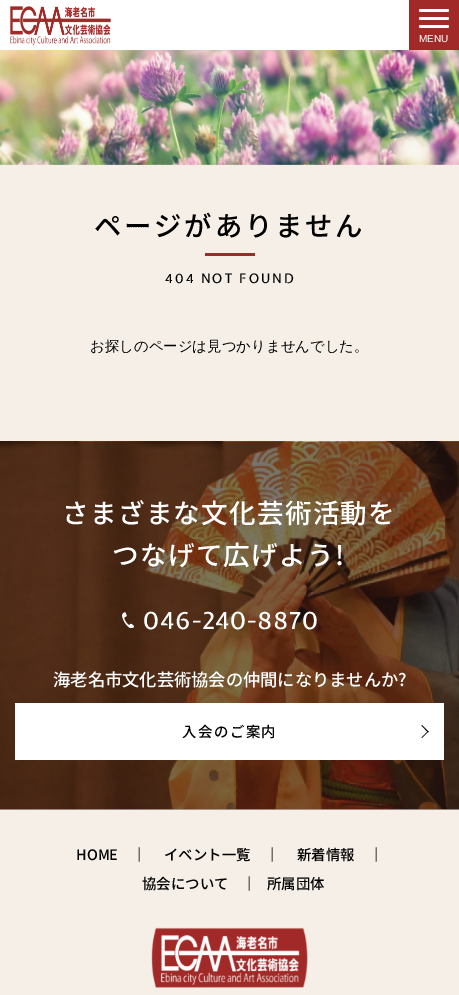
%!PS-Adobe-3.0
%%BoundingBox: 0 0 459 995
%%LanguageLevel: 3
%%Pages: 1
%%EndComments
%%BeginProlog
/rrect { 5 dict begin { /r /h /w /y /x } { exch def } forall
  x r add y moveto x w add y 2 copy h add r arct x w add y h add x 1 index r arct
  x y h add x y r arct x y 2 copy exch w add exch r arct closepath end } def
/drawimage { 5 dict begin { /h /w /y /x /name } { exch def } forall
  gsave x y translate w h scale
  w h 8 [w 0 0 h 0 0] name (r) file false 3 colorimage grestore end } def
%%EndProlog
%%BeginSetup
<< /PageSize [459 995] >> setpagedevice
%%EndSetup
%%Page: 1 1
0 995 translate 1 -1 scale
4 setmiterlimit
0.961 0.937 0.906 setrgbcolor
0 0 459 995 rectfill
1 setgray
0 0 409 50 rectfill
(images/1.raw) 10 6 101 40 drawimage
0.631 0.161 0.153 setrgbcolor
409 0 50 50 rectfill
1 setgray
419 9 30 3 1.5 rrect fill
419 17 30 3 1.5 rrect fill
419 25 30 3 1.5 rrect fill
(images/2.raw) 0 50 459 115 drawimage
0.631 0.161 0.153 setrgbcolor
205 253 50 3 rectfill
(images/3.raw) 0 441 459 369 drawimage
(images/4.raw) 122 612 12 16 drawimage
1 setgray
15 703 429 57 rectfill
0 setgray
newpath 422 725 moveto 428.5 731.5 lineto 428 732.5 lineto 421.5 725.5 lineto closepath fill
newpath 428 731 moveto 428.5 731.5 lineto 422 738 lineto 421.5 737.5 lineto closepath fill
(images/5.raw) 151 927 157 61 drawimage
/LiberationSans-Regular [10 0 0 -10 0 0] selectfont
1 setgray
419 42 moveto (MENU) show
/NotoSansJP-Thin [27.4 0 0 -27.4 0 0] selectfont
0 setgray
94 236 moveto 2.75 0 (ページがありません) ashow
/ExpletusSans-Medium [13 0 0 -13 0 0] selectfont
165 283 moveto 2 0 (404 NOT FOUND) ashow
/WenQuanYiZenHei-Medium [14.4 0 0 -14.4 0 0] selectfont
90 351 moveto (お探しのページは見つかりませんでした。) show
/NotoSansJP-Thin [26.6 0 0 -26.6 0 0] selectfont
1 setgray
62 523 moveto 1.25 0 (さまざまな文化芸術活動を) ashow
112 565 moveto 1.25 0 (つなげて広げよう!) ashow
/ExpletusSans-Medium [24.25 0 0 -24.25 0 0] selectfont
143 629 moveto 0.75 0 (046-240-8870) ashow
/NotoSansJP-Thin [17.25 0 0 -17.25 0 0] selectfont
53 686 moveto (海老名市文化芸術協会の仲間になりませんか?) show
/NotoSansJP-Thin [14.4 0 0 -14.4 0 0] selectfont
0 setgray
182 737 moveto 1.5 0 (入会のご案内) ashow
76 860 moveto (HOME) show
132 860 moveto (｜) show
164 860 moveto (イベント一覧) show
265 860 moveto (｜) show
297 860 moveto (新着情報) show
369 860 moveto (｜) show
142 889 moveto (協会について) show
242 889 moveto (｜) show
267 889 moveto (所属団体) show
showpage
%%EOF
